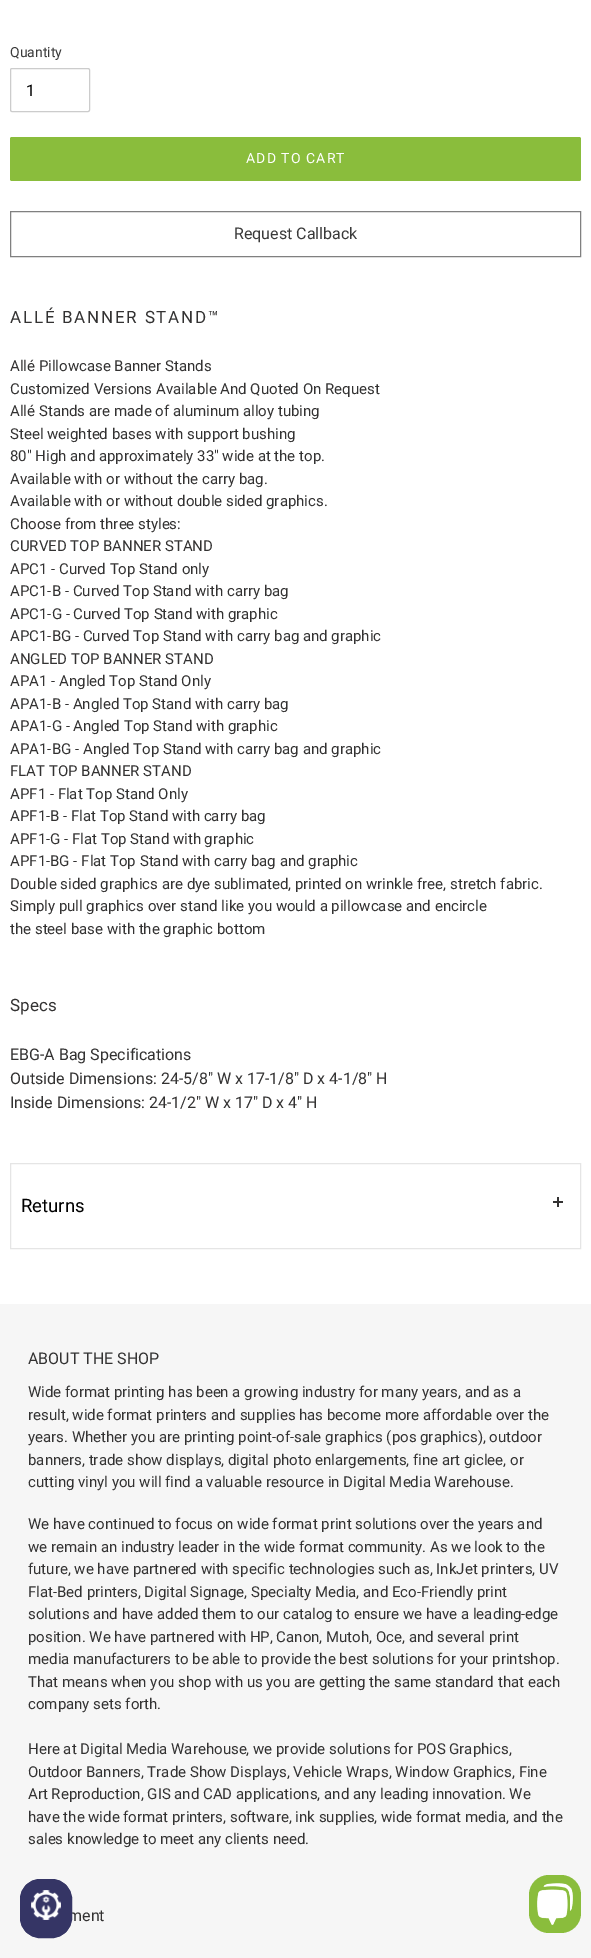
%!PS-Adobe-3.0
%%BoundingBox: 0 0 591 1958
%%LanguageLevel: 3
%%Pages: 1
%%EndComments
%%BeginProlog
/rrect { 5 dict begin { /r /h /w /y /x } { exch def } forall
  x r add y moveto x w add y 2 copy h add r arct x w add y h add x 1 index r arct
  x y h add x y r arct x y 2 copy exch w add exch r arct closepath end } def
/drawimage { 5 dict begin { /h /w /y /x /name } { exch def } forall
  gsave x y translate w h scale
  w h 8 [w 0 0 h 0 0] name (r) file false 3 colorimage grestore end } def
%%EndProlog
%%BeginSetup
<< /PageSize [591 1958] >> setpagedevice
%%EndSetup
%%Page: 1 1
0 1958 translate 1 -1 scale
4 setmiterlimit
1 setgray
0 0 591 1958 rectfill
0.8 setgray
10.5 68.5 79 43 1.5 rrect stroke
0.541 0.741 0.235 setrgbcolor
10 137 571 44 2 rrect fill
0.502 setgray
10.5 211.5 570 45 rectstroke
0.898 setgray
10.5 1163.5 570 85 rectstroke
0.2 0.196 0.196 setrgbcolor
553 1201 10 2 rectfill
557 1197 2 10 rectfill
0.965 setgray
0 1304 591 654 rectfill
0.541 0.741 0.235 setrgbcolor
529 1875 52 58 20 rrect fill
(images/2.raw) 537 1883 36 42 drawimage
/Roboto-Regular [14 0 0 -14 0 0] selectfont
0.227 setgray
10 57 moveto (Quantity) show
/Roboto-Regular [16 0 0 -16 0 0] selectfont
0 setgray
26 96 moveto (1) show
/Roboto-Regular [14 0 0 -14 0 0] selectfont
1 setgray
246 163 moveto 1.1 0 (ADD TO CART) ashow
/Roboto-Regular [16 0 0 -16 0 0] selectfont
0.227 setgray
234 239 moveto (Request Callback) show
/Roboto-Regular [17 0 0 -17 0 0] selectfont
0.2 0.196 0.196 setrgbcolor
10 323 moveto 1.75 0 (ALLÉ BANNER STAND™) ashow
/Roboto-Regular [15 0 0 -15 0 0] selectfont
10 371 moveto (Allé Pillowcase Banner Stands) show
10 394 moveto (Customized Versions Available And Quoted On Request) show
10 416 moveto (Allé Stands are made of aluminum alloy tubing) show
10 439 moveto (Steel weighted bases with support bushing) show
10 461 moveto (80" High and approximately 33" wide at the top.) show
10 484 moveto (Available with or without the carry bag.) show
10 506 moveto (Available with or without double sided graphics.) show
10 529 moveto (Choose from three styles:) show
10 551 moveto (CURVED TOP BANNER STAND) show
10 574 moveto (APC1 - Curved Top Stand only) show
10 596 moveto (APC1-B - Curved Top Stand with carry bag) show
10 619 moveto (APC1-G - Curved Top Stand with graphic) show
10 641 moveto (APC1-BG - Curved Top Stand with carry bag and graphic) show
10 664 moveto (ANGLED TOP BANNER STAND) show
10 686 moveto (APA1 - Angled Top Stand Only) show
10 709 moveto (APA1-B - Angled Top Stand with carry bag) show
10 731 moveto (APA1-G - Angled Top Stand with graphic) show
10 754 moveto (APA1-BG - Angled Top Stand with carry bag and graphic) show
10 776 moveto (FLAT TOP BANNER STAND) show
10 799 moveto (APF1 - Flat Top Stand Only) show
10 821 moveto (APF1-B - Flat Top Stand with carry bag) show
10 844 moveto (APF1-G - Flat Top Stand with graphic) show
10 866 moveto (APF1-BG - Flat Top Stand with carry bag and graphic) show
10 889 moveto (Double sided graphics are dye sublimated, printed on wrinkle free, stretch fabric.) show
10 911 moveto (Simply pull graphics over stand like you would a pillowcase and encircle) show
10 934 moveto (the steel base with the graphic bottom) show
/Roboto-Regular [17 0 0 -17 0 0] selectfont
10 1011 moveto (Specs) show
/Roboto-Regular [16 0 0 -16 0 0] selectfont
10 1060 moveto (EBG-A Bag Specifications) show
10 1084 moveto (Outside Dimensions: 24-5/8" W x 17-1/8" D x 4-1/8" H) show
10 1108 moveto (Inside Dimensions: 24-1/2" W x 17" D x 4" H) show
/Roboto-Regular [18.5 0 0 -18.5 0 0] selectfont
0 setgray
21 1212 moveto (Returns) show
/Roboto-Regular [16 0 0 -16 0 0] selectfont
0.2 0.196 0.196 setrgbcolor
28 1364 moveto (ABOUT THE SHOP) show
/Roboto-Regular [15 0 0 -15 0 0] selectfont
28 1397 moveto (Wide format printing has been a growing industry for many years, and as a) show
28 1420 moveto (result, wide format printers and supplies has become more affordable over the) show
28 1442 moveto (years. Whether you are printing point-of-sale graphics \(pos graphics\), outdoor) show
28 1465 moveto (banners, trade show displays, digital photo enlargements, fine art giclee, or) show
28 1487 moveto (cutting vinyl you will find a valuable resource in Digital Media Warehouse.) show
28 1529 moveto (We have continued to focus on wide format print solutions over the years and) show
28 1552 moveto (we remain an industry leader in the wide format community. As we look to the) show
28 1574 moveto (future, we have partnered with specific technologies such as, InkJet printers, UV) show
28 1597 moveto (Flat-Bed printers, Digital Signage, Specialty Media, and Eco-Friendly print) show
28 1619 moveto (solutions and have added them to our catalog to ensure we have a leading-edge) show
28 1642 moveto (position. We have partnered with HP, Canon, Mutoh, Oce, and several print) show
28 1664 moveto (media manufacturers to be able to provide the best solutions for your printshop.) show
28 1687 moveto (That means when you shop with us you are getting the same standard that each) show
28 1709 moveto (company sets forth.) show
28 1754 moveto (Here at Digital Media Warehouse, we provide solutions for POS Graphics,) show
28 1777 moveto (Outdoor Banners, Trade Show Displays, Vehicle Wraps, Window Graphics, Fine) show
28 1799 moveto (Art Reproduction, GIS and CAD applications, and any leading innovation. We) show
28 1822 moveto (have the wide format printers, software, ink supplies, wide format media, and the) show
28 1844 moveto (sales knowledge to meet any clients need.) show
/Roboto-Regular [16 0 0 -16 0 0] selectfont
68 1921 moveto (ment) show
0.208 0.208 0.396 setrgbcolor
20.5 1879.5 51 58 19.5 rrect gsave fill grestore
stroke
(images/1.raw) 31 1890 30 30 drawimage
showpage
%%EOF
